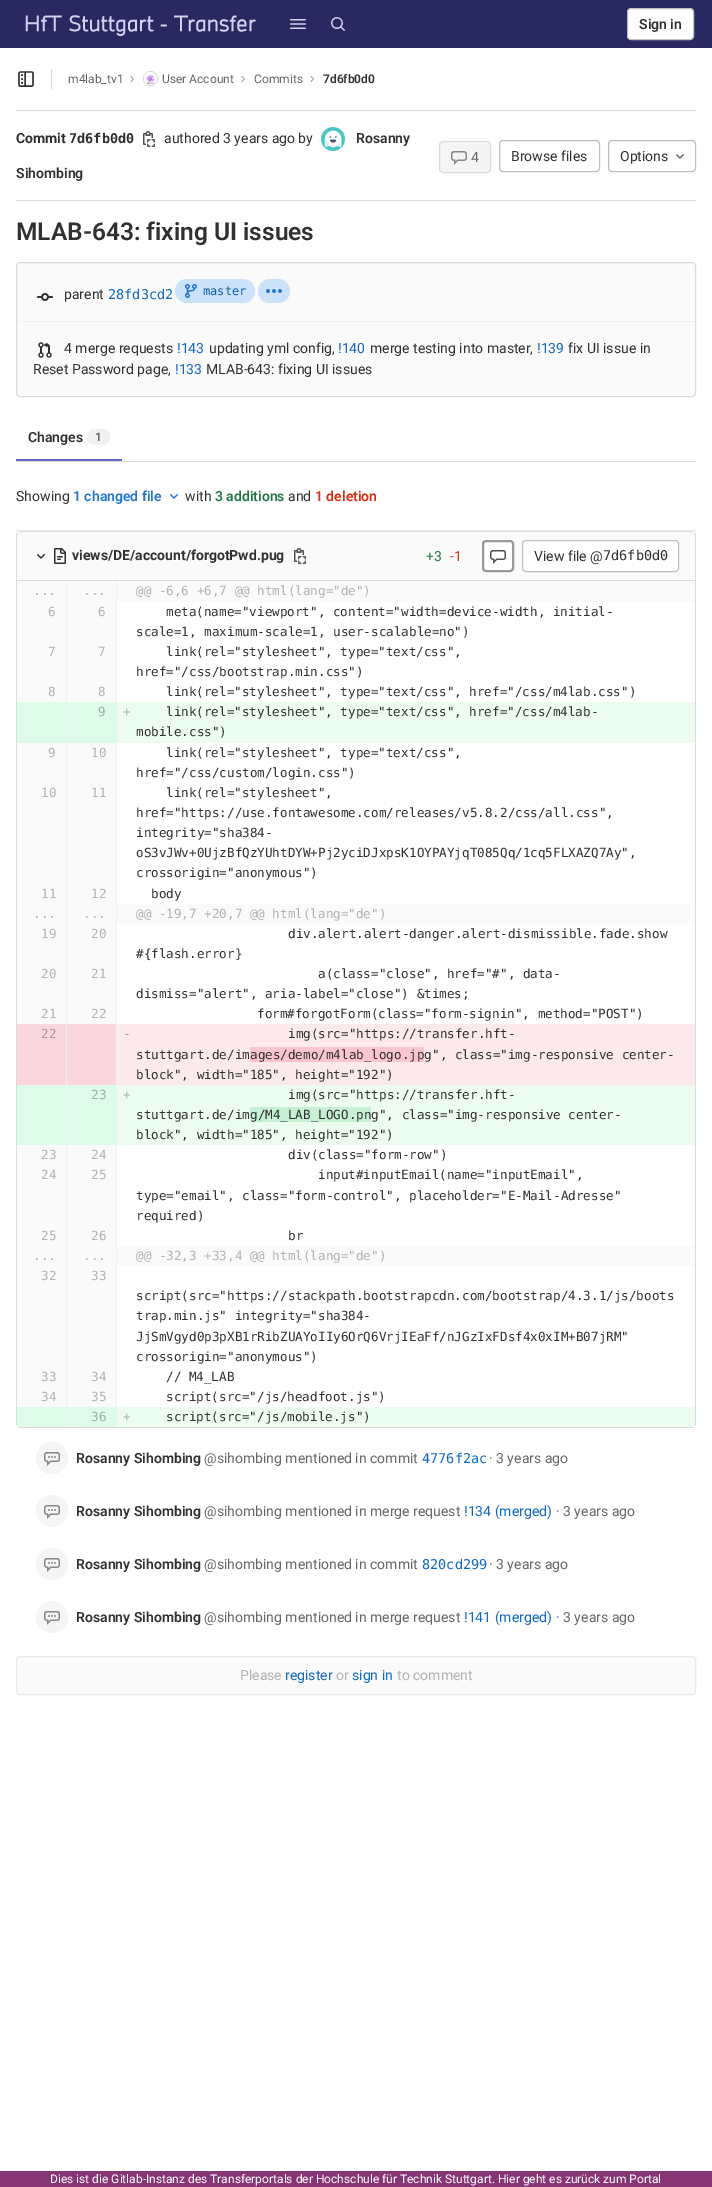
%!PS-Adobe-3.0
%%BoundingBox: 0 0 712 2187
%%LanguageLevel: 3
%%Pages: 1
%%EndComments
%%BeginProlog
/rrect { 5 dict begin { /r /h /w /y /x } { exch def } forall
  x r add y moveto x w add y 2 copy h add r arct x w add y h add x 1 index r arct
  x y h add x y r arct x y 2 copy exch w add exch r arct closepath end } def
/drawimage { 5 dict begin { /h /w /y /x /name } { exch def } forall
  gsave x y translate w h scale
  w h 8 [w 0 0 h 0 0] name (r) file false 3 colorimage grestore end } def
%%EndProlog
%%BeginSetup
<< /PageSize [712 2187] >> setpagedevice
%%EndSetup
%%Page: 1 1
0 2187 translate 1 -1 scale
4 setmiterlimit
1 setgray
0 0 712 2187 rectfill
0.161 0.161 0.38 setrgbcolor
0 0 712 48 rectfill
(images/1.raw) 25 15 231 21 drawimage
(images/2.raw) 290 19 16 10 drawimage
(images/3.raw) 331 17 14 14 drawimage
1 setgray
627.5 8.5 66 31 3.5 rrect gsave fill grestore
0.749 setgray
stroke
0.859 setgray
16 110 680 1 rectfill
(images/4.raw) 18 71 16 16 drawimage
0.839 setgray
51 69 1 20 rectfill
(images/5.raw) 130 76 4 6 drawimage
0.859 setgray
newpath 150.5 78.5 7 0 360 arc closepath stroke
(images/6.raw) 144 72 13 13 drawimage
(images/5.raw) 241 76 4 6 drawimage
(images/5.raw) 310 76 4 6 drawimage
(images/7.raw) 143 131 12 16 drawimage
0.906 setgray
newpath 333 139 11.5 0 360 arc closepath stroke
(images/8.raw) 321 127 24 24 drawimage
0.961 setgray
439.5 141.5 51 31 3.5 rrect gsave fill grestore
0.859 setgray
stroke
(images/9.raw) 451 151 16 14 drawimage
0.749 setgray
499.5 140.5 100 31 3.5 rrect stroke
608.5 140.5 87 31 3.5 rrect stroke
(images/10.raw) 676 154 8 5 drawimage
0.859 setgray
16 200 680 1 rectfill
0.98 setgray
16.5 262.5 679 134 3.5 rrect gsave fill grestore
0.859 setgray
stroke
0.933 0.941 0.949 setrgbcolor
17 321 678 1 rectfill
(images/11.raw) 37 293 16 8 drawimage
0.796 0.886 0.976 setrgbcolor
175 279 80 24 12 rrect fill
(images/12.raw) 185 284 12 14 drawimage
258 279 32 24 12 rrect fill
(images/13.raw) 266 289 16 4 drawimage
(images/14.raw) 38 342 14 16 drawimage
0.859 setgray
16 461 680 1 rectfill
0.4 0.4 0.769 setrgbcolor
16 459 106 2 rectfill
0.941 setgray
87 429 23 16 8 rrect fill
0.918 setgray
16 530 680 1 rectfill
(images/15.raw) 170 494 8 5 drawimage
0.859 setgray
newpath 20 531 moveto 692 531 lineto 694 531 696 533 696 535 curveto 696 1424 lineto 696 1426 694 1428 692 1428 curveto 20 1428 lineto 18 1428 16 1426 16 1424 curveto 16 535 lineto 16 533 18 531 20 531 curveto closepath 20 531 moveto 692 531 lineto 694 531 695 533 695 535 curveto 695 1424 lineto 695 1426 694 1427 692 1427 curveto 20 1427 lineto 18 1427 17 1426 17 1424 curveto 17 535 lineto 17 533 18 531 20 531 curveto closepath eofill
0.98 setgray
newpath 21 531 moveto 691 531 lineto 693 531 695 533 695 535 curveto 695 581 lineto 17 581 lineto 17 535 lineto 17 533 19 531 21 531 curveto closepath fill
0.859 setgray
19 531 674 1 rectfill
17 580 678 1 rectfill
(images/16.raw) 37 554 8 5 drawimage
(images/17.raw) 54 548 12 16 drawimage
(images/18.raw) 294 548 12 16 drawimage
1 setgray
483 541 30 30 3 rrect gsave fill grestore
0.6 setgray
2 setlinewidth
stroke
(images/19.raw) 490 550 16 14 drawimage
1 setgray
522.5 540.5 156 31 3.5 rrect gsave fill grestore
0.749 setgray
1 setlinewidth
stroke
1 setgray
17 1425 678 2 rectfill
0.98 setgray
17 581 49 121 rectfill
0.941 setgray
66 581 1 826 rectfill
0.98 setgray
67 581 49 121 rectfill
0.941 setgray
116 581 1 846 rectfill
0.98 setgray
117 581 578 21 rectfill
0.867 0.984 0.902 setrgbcolor
17 702 49 41 rectfill
67 702 49 41 rectfill
0.925 0.992 0.941 setrgbcolor
117 702 578 41 rectfill
0.98 setgray
17 743 49 281 rectfill
67 743 49 281 rectfill
117 904 578 20 rectfill
0.976 0.843 0.863 setrgbcolor
17 1024 49 61 rectfill
67 1024 49 61 rectfill
0.984 0.914 0.922 setrgbcolor
117 1024 578 61 rectfill
0.98 0.773 0.804 setrgbcolor
250 1047 174 15 2 rrect fill
0.867 0.984 0.902 setrgbcolor
17 1085 49 60 rectfill
67 1085 49 60 rectfill
0.925 0.992 0.941 setrgbcolor
117 1085 578 60 rectfill
0.78 0.941 0.824 setrgbcolor
250 1107 121 15 2 rrect fill
0.98 setgray
17 1145 49 262 rectfill
67 1145 49 262 rectfill
117 1246 578 20 rectfill
0.867 0.984 0.902 setrgbcolor
newpath 17 1407 moveto 67 1407 lineto 67 1427 lineto 21 1427 lineto 19 1427 17 1425 17 1423 curveto closepath fill
0.941 setgray
66 1407 1 20 rectfill
0.867 0.984 0.902 setrgbcolor
67 1407 49 20 rectfill
0.925 0.992 0.941 setrgbcolor
newpath 117 1407 moveto 695 1407 lineto 695 1423 lineto 695 1425 693 1427 691 1427 curveto 117 1427 lineto closepath fill
0.961 setgray
newpath 52 1458 16 0 360 arc closepath fill
(images/20.raw) 44 1452 16 14 drawimage
newpath 52 1511 16 0 360 arc closepath fill
(images/20.raw) 44 1505 16 14 drawimage
newpath 52 1564 16 0 360 arc closepath fill
(images/20.raw) 44 1558 16 14 drawimage
newpath 52 1617 16 0 360 arc closepath fill
(images/20.raw) 44 1611 16 14 drawimage
0.98 setgray
16.5 1656.5 679 38 3.5 rrect gsave fill grestore
0.91 setgray
stroke
0.529 0.208 0.459 setrgbcolor
0 2171 712 16 rectfill
/Roboto-SemiBold [14 0 0 -14 0 0] selectfont
0.188 setgray
639 29 moveto (Sign in) show
/Roboto-Regular [12 0 0 -12 0 0] selectfont
0.4 setgray
68 83 moveto (m4lab_tv1) show
162 83 moveto (User Account) show
254 83 moveto (Commits) show
/Roboto-SemiBold [12 0 0 -12 0 0] selectfont
0.188 setgray
323 83 moveto (7d6fb0d0) show
/Roboto-Bold [14 0 0 -14 0 0] selectfont
16 143 moveto (Commit) show
/DejaVuSansMono-Bold [13.5 0 0 -13.5 0 0] selectfont
69 143 moveto (7d6fb0d0) show
/Roboto-Regular [14 0 0 -14 0 0] selectfont
164 143 moveto (authored 3 years ago by) show
/Roboto-SemiBold [14 0 0 -14 0 0] selectfont
356 143 moveto (Rosanny) show
16 178 moveto (Sihombing) show
/Roboto-Regular [14 0 0 -14 0 0] selectfont
0.4 setgray
471 162 moveto (4) show
0.188 setgray
511 161 moveto (Browse files) show
620 161 moveto (Options) show
/Roboto-SemiBold [24.5 0 0 -24.5 0 0] selectfont
16 240 moveto (MLAB-643: fixing UI issues) show
/Roboto-Regular [14 0 0 -14 0 0] selectfont
64 299 moveto (parent) show
/DejaVuSansMono-Regular [13.5 0 0 -13.5 0 0] selectfont
0.063 0.408 0.749 setrgbcolor
108 299 moveto (28fd3cd2) show
/DejaVuSansMono-Regular [12 0 0 -12 0 0] selectfont
0.043 0.361 0.678 setrgbcolor
203 295 moveto (master) show
/Roboto-Regular [14 0 0 -14 0 0] selectfont
0.188 setgray
64 353 moveto (4 merge requests) show
0.063 0.408 0.749 setrgbcolor
177 353 moveto (!143) show
0.188 setgray
209 353 moveto (updating yml config,) show
0.063 0.408 0.749 setrgbcolor
338 353 moveto (!140) show
0.188 setgray
370 353 moveto (merge testing into master,) show
0.063 0.408 0.749 setrgbcolor
537 353 moveto (!139) show
0.188 setgray
568 353 moveto (fix UI issue in) show
33 374 moveto (Reset Password page,) show
0.063 0.408 0.749 setrgbcolor
175 374 moveto (!133) show
0.188 setgray
206 374 moveto (MLAB-643: fixing UI issues) show
/Roboto-SemiBold [14 0 0 -14 0 0] selectfont
28 442 moveto (Changes) show
/Roboto-SemiBold [12 0 0 -12 0 0] selectfont
0.4 setgray
95 441 moveto (1) show
/Roboto-Regular [14 0 0 -14 0 0] selectfont
0.188 setgray
16 501 moveto (Showing) show
/Roboto-SemiBold [14 0 0 -14 0 0] selectfont
0.122 0.459 0.796 setrgbcolor
73 501 moveto (1 changed file) show
/Roboto-Regular [14 0 0 -14 0 0] selectfont
0.188 setgray
185 501 moveto (with) show
/Roboto-SemiBold [14 0 0 -14 0 0] selectfont
0.129 0.463 0.271 setrgbcolor
215 501 moveto (3 additions) show
/Roboto-Regular [14 0 0 -14 0 0] selectfont
0.188 setgray
288 501 moveto (and) show
/Roboto-SemiBold [14 0 0 -14 0 0] selectfont
0.867 0.169 0.055 setrgbcolor
315 501 moveto (1 deletion) show
/Roboto-Bold [14 0 0 -14 0 0] selectfont
0.188 setgray
72 560 moveto (views/DE/account/forgotPwd.pug) show
/Roboto-Regular [14 0 0 -14 0 0] selectfont
0.129 0.463 0.271 setrgbcolor
426 561 moveto (+3) show
0.867 0.169 0.055 setrgbcolor
450 561 moveto (-1) show
0.188 setgray
534 561 moveto (View file @) show
/DejaVuSansMono-Regular [13.5 0 0 -13.5 0 0] selectfont
603 560 moveto (7d6fb0d0) show
/DejaVuSansMono-Regular [12.6 0 0 -12.6 0 0] selectfont
0.698 setgray
33 595 moveto (...) show
83 595 moveto (...) show
136 595 moveto (@@ -6,6 +6,7 @@ html\(lang="de"\)) show
48 616 moveto (6) show
98 616 moveto (6) show
0.188 setgray
166 616 moveto (meta\(name="viewport", content="width=device-width, initial-) show
136 636 moveto (scale=1, maximum-scale=1, user-scalable=no"\)) show
0.698 setgray
48 656 moveto (7) show
98 656 moveto (7) show
0.188 setgray
166 656 moveto (link\(rel="stylesheet", type="text/css",) show
136 676 moveto (href="/css/bootstrap.min.css"\)) show
0.698 setgray
48 696 moveto (8) show
98 696 moveto (8) show
0.188 setgray
166 696 moveto (link\(rel="stylesheet", type="text/css", href="/css/m4lab.css"\)) show
0.608 0.69 0.631 setrgbcolor
98 716 moveto (9) show
123 716 moveto (+) show
0.188 setgray
166 716 moveto (link\(rel="stylesheet", type="text/css", href="/css/m4lab-) show
136 736 moveto (mobile.css"\)) show
0.698 setgray
48 757 moveto (9) show
91 757 moveto (10) show
0.188 setgray
166 757 moveto (link\(rel="stylesheet", type="text/css",) show
136 777 moveto (href="/css/custom/login.css"\)) show
0.698 setgray
41 797 moveto (10) show
91 797 moveto (11) show
0.188 setgray
166 797 moveto (link\(rel="stylesheet",) show
136 817 moveto (href="https://use.fontawesome.com/releases/v5.8.2/css/all.css",) show
136 837 moveto (integrity="sha384-) show
136 857 moveto (oS3vJWv+0UjzBfQzYUhtDYW+Pj2yciDJxpsK1OYPAYjqT085Qq/1cq5FLXAZQ7Ay",) show
136 877 moveto (crossorigin="anonymous"\)) show
0.698 setgray
41 898 moveto (11) show
91 898 moveto (12) show
0.188 setgray
151 898 moveto (body) show
0.698 setgray
33 918 moveto (...) show
83 918 moveto (...) show
136 918 moveto (@@ -19,7 +20,7 @@ html\(lang="de"\)) show
41 938 moveto (19) show
91 938 moveto (20) show
0.188 setgray
288 938 moveto (div.alert.alert-danger.alert-dismissible.fade.show) show
136 958 moveto (#{flash.error}) show
0.698 setgray
41 978 moveto (20) show
91 978 moveto (21) show
0.188 setgray
318 978 moveto (a\(class="close", href="#", data-) show
136 998 moveto (dismiss="alert", aria-label="close"\) &times;) show
0.698 setgray
41 1018 moveto (21) show
91 1018 moveto (22) show
0.188 setgray
257 1018 moveto (form#forgotForm\(class="form-signin", method="POST"\)) show
0.682 0.592 0.604 setrgbcolor
41 1038 moveto (22) show
123 1038 moveto (-) show
0.188 setgray
288 1038 moveto (img\(src="https://transfer.hft-) show
136 1059 moveto (stuttgart.de/im) show
250 1059 moveto (ages/demo/m4lab_logo.jpg", class="img-responsive center-) show
136 1079 moveto (block", width="185", height="192"\)) show
0.608 0.69 0.631 setrgbcolor
91 1099 moveto (23) show
123 1099 moveto (+) show
0.188 setgray
288 1099 moveto (img\(src="https://transfer.hft-) show
136 1119 moveto (stuttgart.de/im) show
250 1119 moveto (g/M4_LAB_LOGO.png", class="img-responsive center-) show
136 1139 moveto (block", width="185", height="192"\)) show
0.698 setgray
41 1159 moveto (23) show
91 1159 moveto (24) show
0.188 setgray
288 1159 moveto (div\(class="form-row"\)) show
0.698 setgray
41 1179 moveto (24) show
91 1179 moveto (25) show
0.188 setgray
318 1179 moveto (input#inputEmail\(name="inputEmail",) show
136 1200 moveto (type="email", class="form-control", placeholder="E-Mail-Adresse") show
136 1220 moveto (required\)) show
0.698 setgray
41 1240 moveto (25) show
91 1240 moveto (26) show
0.188 setgray
288 1240 moveto (br) show
0.698 setgray
33 1260 moveto (...) show
83 1260 moveto (...) show
136 1260 moveto (@@ -32,3 +33,4 @@ html\(lang="de"\)) show
41 1280 moveto (32) show
91 1280 moveto (33) show
0.188 setgray
136 1300 moveto (script\(src="https://stackpath.bootstrapcdn.com/bootstrap/4.3.1/js/boots) show
136 1320 moveto (trap.min.js" integrity="sha384-) show
136 1341 moveto (JjSmVgyd0p3pXB1rRibZUAYoIIy6OrQ6VrjIEaFf/nJGzIxFDsf4x0xIM+B07jRM") show
136 1361 moveto (crossorigin="anonymous"\)) show
0.698 setgray
41 1381 moveto (33) show
91 1381 moveto (34) show
0.188 setgray
166 1381 moveto (// M4_LAB) show
0.698 setgray
41 1401 moveto (34) show
91 1401 moveto (35) show
0.188 setgray
166 1401 moveto (script\(src="/js/headfoot.js"\)) show
0.608 0.69 0.631 setrgbcolor
91 1421 moveto (36) show
123 1421 moveto (+) show
0.188 setgray
166 1421 moveto (script\(src="/js/mobile.js"\)) show
/Roboto-SemiBold [14 0 0 -14 0 0] selectfont
76 1463 moveto (Rosanny Sihombing) show
/Roboto-Regular [14 0 0 -14 0 0] selectfont
0.4 setgray
204 1463 moveto (@sihombing mentioned in commit) show
/DejaVuSansMono-Regular [13.5 0 0 -13.5 0 0] selectfont
0.063 0.408 0.749 setrgbcolor
422 1463 moveto (4776f2ac) show
/Roboto-Regular [14 0 0 -14 0 0] selectfont
0.4 setgray
489 1463 moveto (· 3 years ago) show
/Roboto-SemiBold [14 0 0 -14 0 0] selectfont
0.188 setgray
76 1516 moveto (Rosanny Sihombing) show
/Roboto-Regular [14 0 0 -14 0 0] selectfont
0.4 setgray
204 1516 moveto (@sihombing mentioned in merge request) show
0.063 0.408 0.749 setrgbcolor
464 1516 moveto (!134 \(merged\)) show
0.4 setgray
556 1516 moveto (· 3 years ago) show
/Roboto-SemiBold [14 0 0 -14 0 0] selectfont
0.188 setgray
76 1569 moveto (Rosanny Sihombing) show
/Roboto-Regular [14 0 0 -14 0 0] selectfont
0.4 setgray
204 1569 moveto (@sihombing mentioned in commit) show
/DejaVuSansMono-Regular [13.5 0 0 -13.5 0 0] selectfont
0.063 0.408 0.749 setrgbcolor
422 1569 moveto (820cd299) show
/Roboto-Regular [14 0 0 -14 0 0] selectfont
0.4 setgray
489 1569 moveto (· 3 years ago) show
/Roboto-SemiBold [14 0 0 -14 0 0] selectfont
0.188 setgray
76 1622 moveto (Rosanny Sihombing) show
/Roboto-Regular [14 0 0 -14 0 0] selectfont
0.4 setgray
204 1622 moveto (@sihombing mentioned in merge request) show
0.063 0.408 0.749 setrgbcolor
464 1622 moveto (!141 \(merged\)) show
0.4 setgray
556 1622 moveto (· 3 years ago) show
0.698 setgray
240 1680 moveto (Please) show
0.063 0.408 0.749 setrgbcolor
285 1680 moveto (register) show
0.698 setgray
336 1680 moveto (or) show
0.063 0.408 0.749 setrgbcolor
352 1680 moveto (sign in) show
0.698 setgray
397 1680 moveto (to comment) show
/Roboto-Regular [12 0 0 -12 0 0] selectfont
1 setgray
50 2183 moveto (Dies ist die Gitlab-Instanz des Transferportals der Hochschule für Technik Stuttgart. Hier geht es zurück zum Portal) show
showpage
%%EOF
